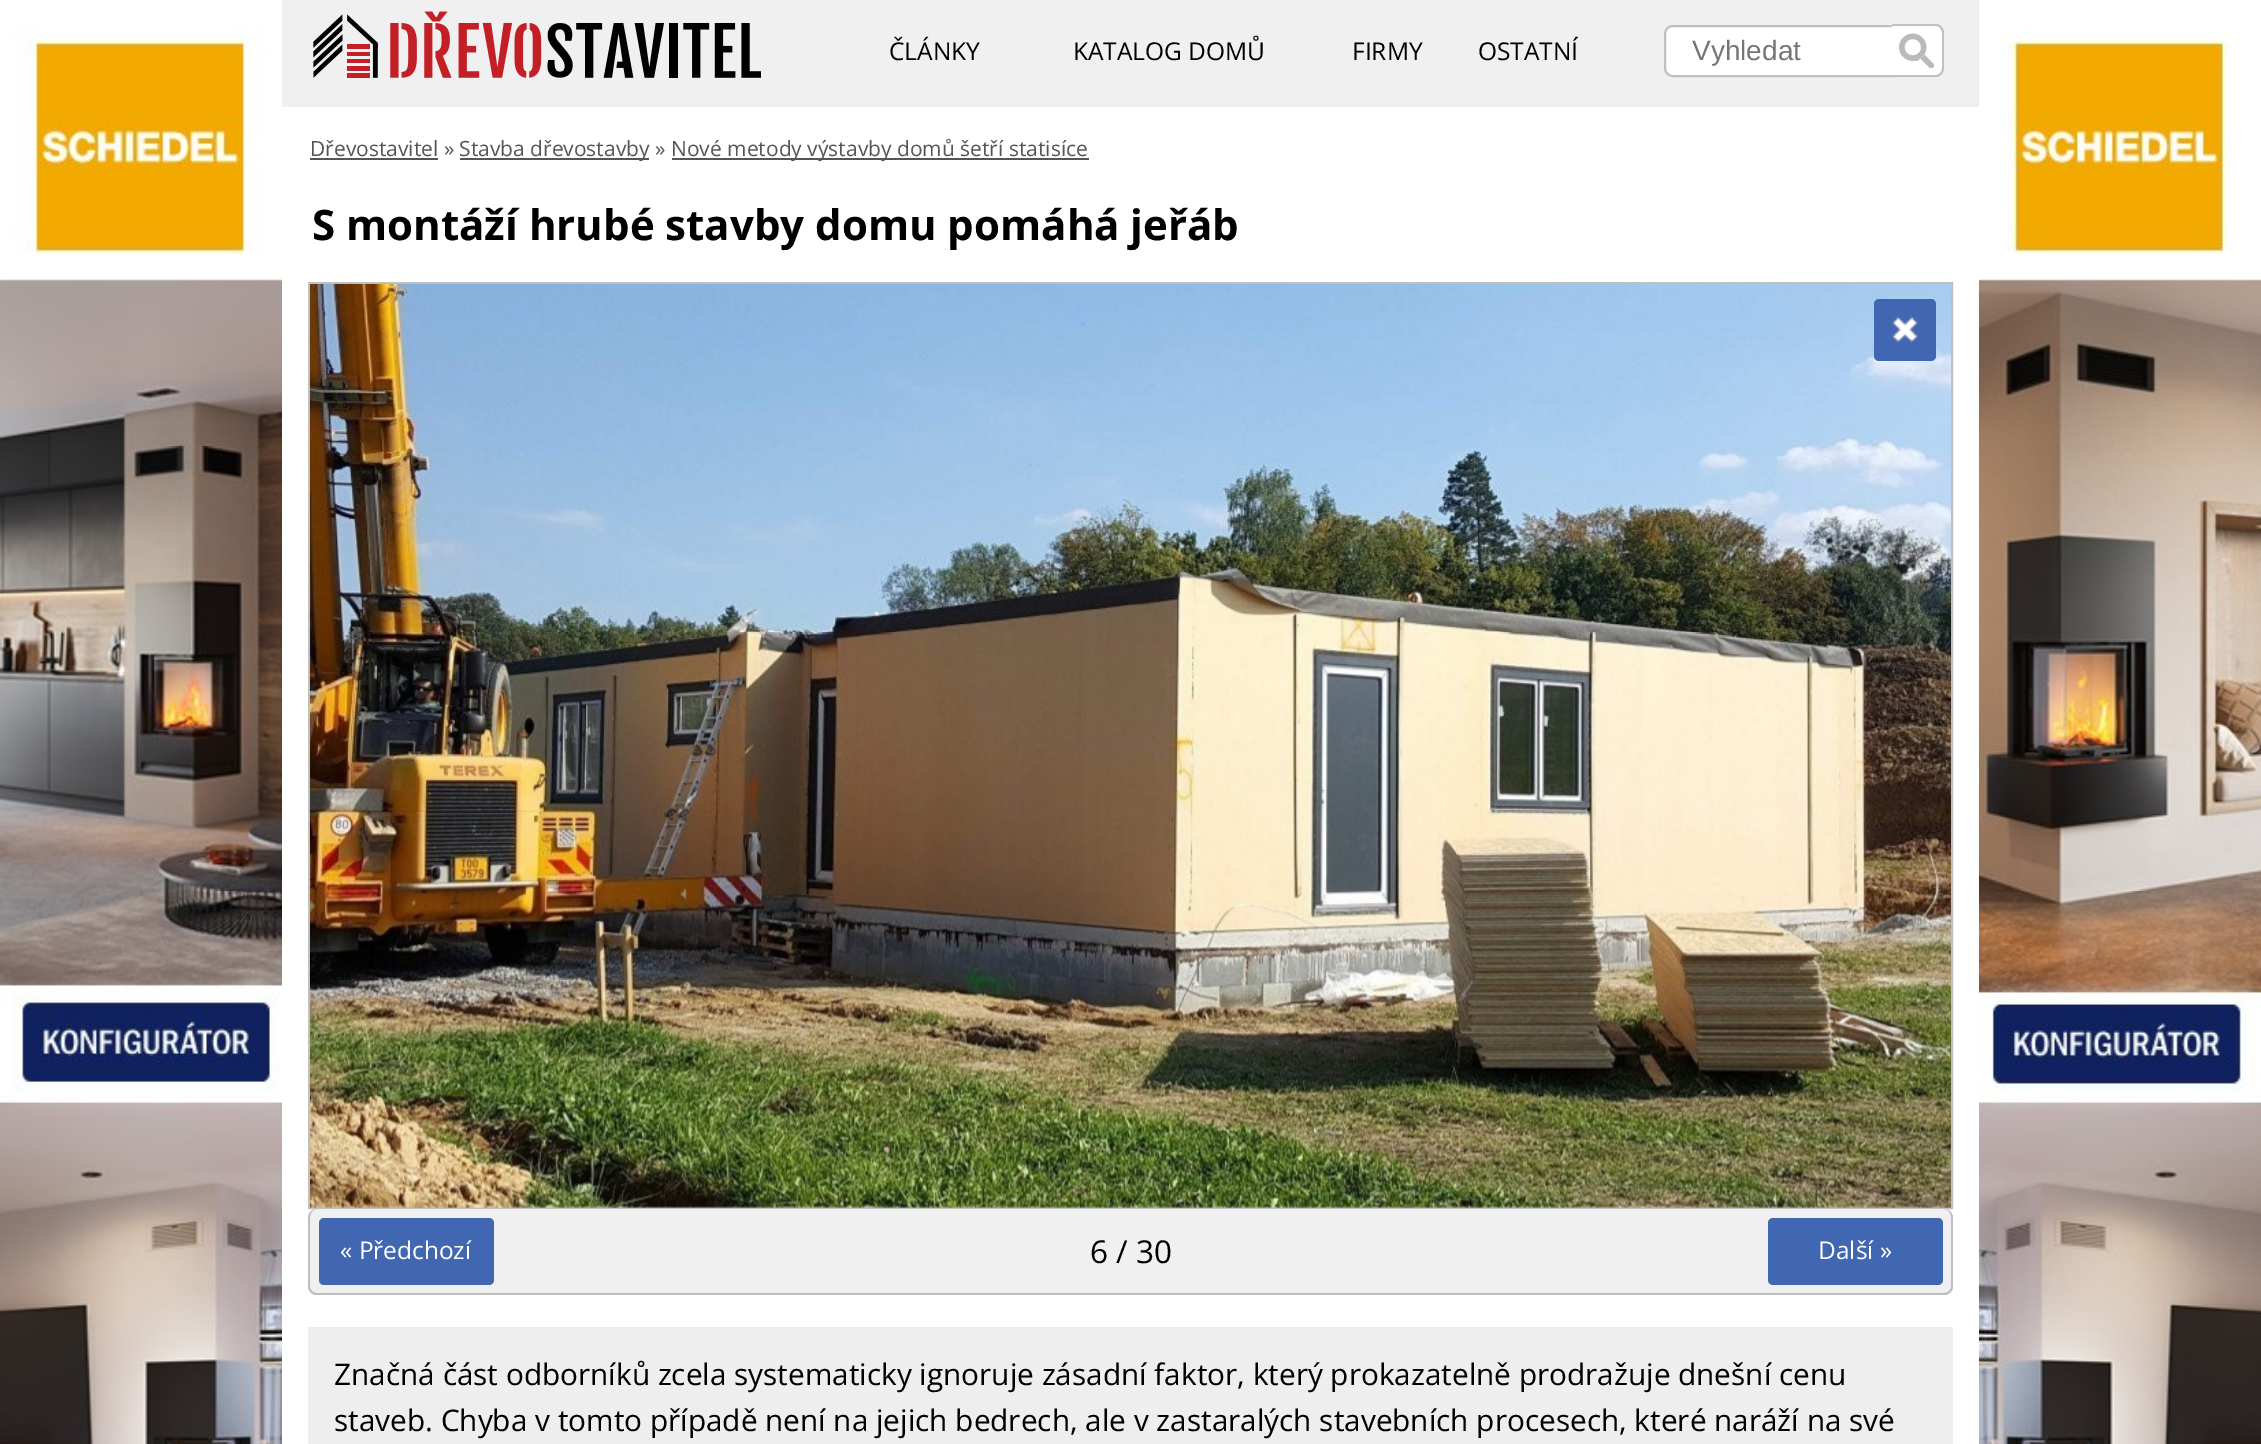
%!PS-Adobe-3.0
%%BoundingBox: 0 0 2261 1444
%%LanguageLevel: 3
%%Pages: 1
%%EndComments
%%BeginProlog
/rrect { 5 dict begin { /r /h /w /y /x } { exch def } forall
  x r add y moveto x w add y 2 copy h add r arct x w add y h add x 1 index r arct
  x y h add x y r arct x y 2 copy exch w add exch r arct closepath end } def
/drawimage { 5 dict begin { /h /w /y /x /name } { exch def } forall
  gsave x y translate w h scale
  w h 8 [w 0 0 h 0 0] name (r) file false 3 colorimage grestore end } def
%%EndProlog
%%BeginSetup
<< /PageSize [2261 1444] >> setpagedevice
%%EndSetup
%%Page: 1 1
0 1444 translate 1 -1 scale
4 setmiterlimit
1 setgray
0 0 2261 1444 rectfill
(images/1.raw) 0 28 282 1416 drawimage
0.941 setgray
282 0 1697 107 rectfill
(images/2.raw) 313 11 448 67 drawimage
1 setgray
newpath 1673 26 moveto 1896 26 lineto 1896 76 lineto 1673 76 lineto 1668.5 76 1665 72.5 1665 68 curveto 1665 34 lineto 1665 29.5 1668.5 26 1673 26 curveto closepath gsave fill grestore
0.753 setgray
2 setlinewidth
stroke
1 setgray
newpath 1892 25 moveto 1935 25 lineto 1940 25 1944 29 1944 34 curveto 1944 68 lineto 1944 73 1940 77 1935 77 curveto 1892 77 lineto closepath fill
(images/3.raw) 1899 33 36 35 drawimage
0.753 setgray
newpath 1892 24 moveto 1936 24 lineto 1940 24 1944 28 1944 33 curveto 1944 68 lineto 1944 73 1940 77 1936 77 curveto 1892 77 lineto closepath 1892 26 moveto 1936 26 lineto 1939 26 1942 29 1942 33 curveto 1942 68 lineto 1942 72 1939 75 1936 75 curveto 1892 75 lineto closepath eofill
(images/4.raw) 1979 28 282 1416 drawimage
0.333 setgray
310 158 128 2 rectfill
460 158 189 2 rectfill
672 158 417 2 rectfill
0.753 setgray
309 283 1643 925 rectstroke
(images/5.raw) 310 284 1641 924 drawimage
0.259 0.404 0.698 setrgbcolor
1874 299 62 62 5 rrect fill
(images/6.raw) 1892 316 26 26 drawimage
0.941 setgray
308 1209 1645 86 9 rrect fill
0.753 setgray
newpath 317 1209 moveto 1944 1209 lineto 1949 1209 1953 1213 1953 1218 curveto 1953 1286 lineto 1953 1291 1949 1295 1944 1295 curveto 317 1295 lineto 312 1295 308 1291 308 1286 curveto 308 1218 lineto 308 1213 312 1209 317 1209 curveto closepath 317 1209 moveto 1944 1209 lineto 1948 1209 1951 1213 1951 1218 curveto 1951 1286 lineto 1951 1290 1948 1293 1944 1293 curveto 317 1293 lineto 313 1293 310 1290 310 1286 curveto 310 1218 lineto 310 1213 313 1209 317 1209 curveto closepath eofill
0.259 0.404 0.698 setrgbcolor
319 1218 175 67 5 rrect fill
1768 1218 175 67 5 rrect fill
0.933 setgray
308 1327 1645 117 rectfill
/OpenSans-Regular [24.5 0 0 -24.5 0 0] selectfont
0 setgray
889 60 moveto (ČLÁNKY) show
1073 60 moveto (KATALOG DOMŮ) show
1352 60 moveto (FIRMY) show
1478 60 moveto (OSTATNÍ) show
/LiberationSans-Regular [28 0 0 -28 0 0] selectfont
0.459 setgray
1692 60 moveto (Vyhledat) show
/OpenSans-Regular [21 0 0 -21 0 0] selectfont
0.333 setgray
310 156 moveto (Dřevostavitel ») show
459 156 moveto (Stavba dřevostavby ») show
671 156 moveto (Nové metody výstavby domů šetří statisíce) show
/OpenSans-Bold [42 0 0 -42 0 0] selectfont
0 setgray
312 240 moveto (S montáží hrubé stavby domu pomáhá jeřáb) show
/OpenSans-Regular [24.5 0 0 -24.5 0 0] selectfont
1 setgray
340 1259 moveto (« Předchozí) show
/OpenSans-Regular [31.5 0 0 -31.5 0 0] selectfont
0 setgray
1090 1263 moveto (6 / 30) show
/OpenSans-Regular [24.5 0 0 -24.5 0 0] selectfont
1 setgray
1818 1259 moveto (Další ») show
/OpenSans-Regular [29.75 0 0 -29.75 0 0] selectfont
0 setgray
334 1385 moveto (Značná část odborníků zcela systematicky ignoruje zásadní faktor, který prokazatelně prodražuje dnešní cenu) show
334 1431 moveto (staveb. Chyba v tomto případě není na jejich bedrech, ale v zastaralých stavebních procesech, které naráží na své) show
showpage
%%EOF
